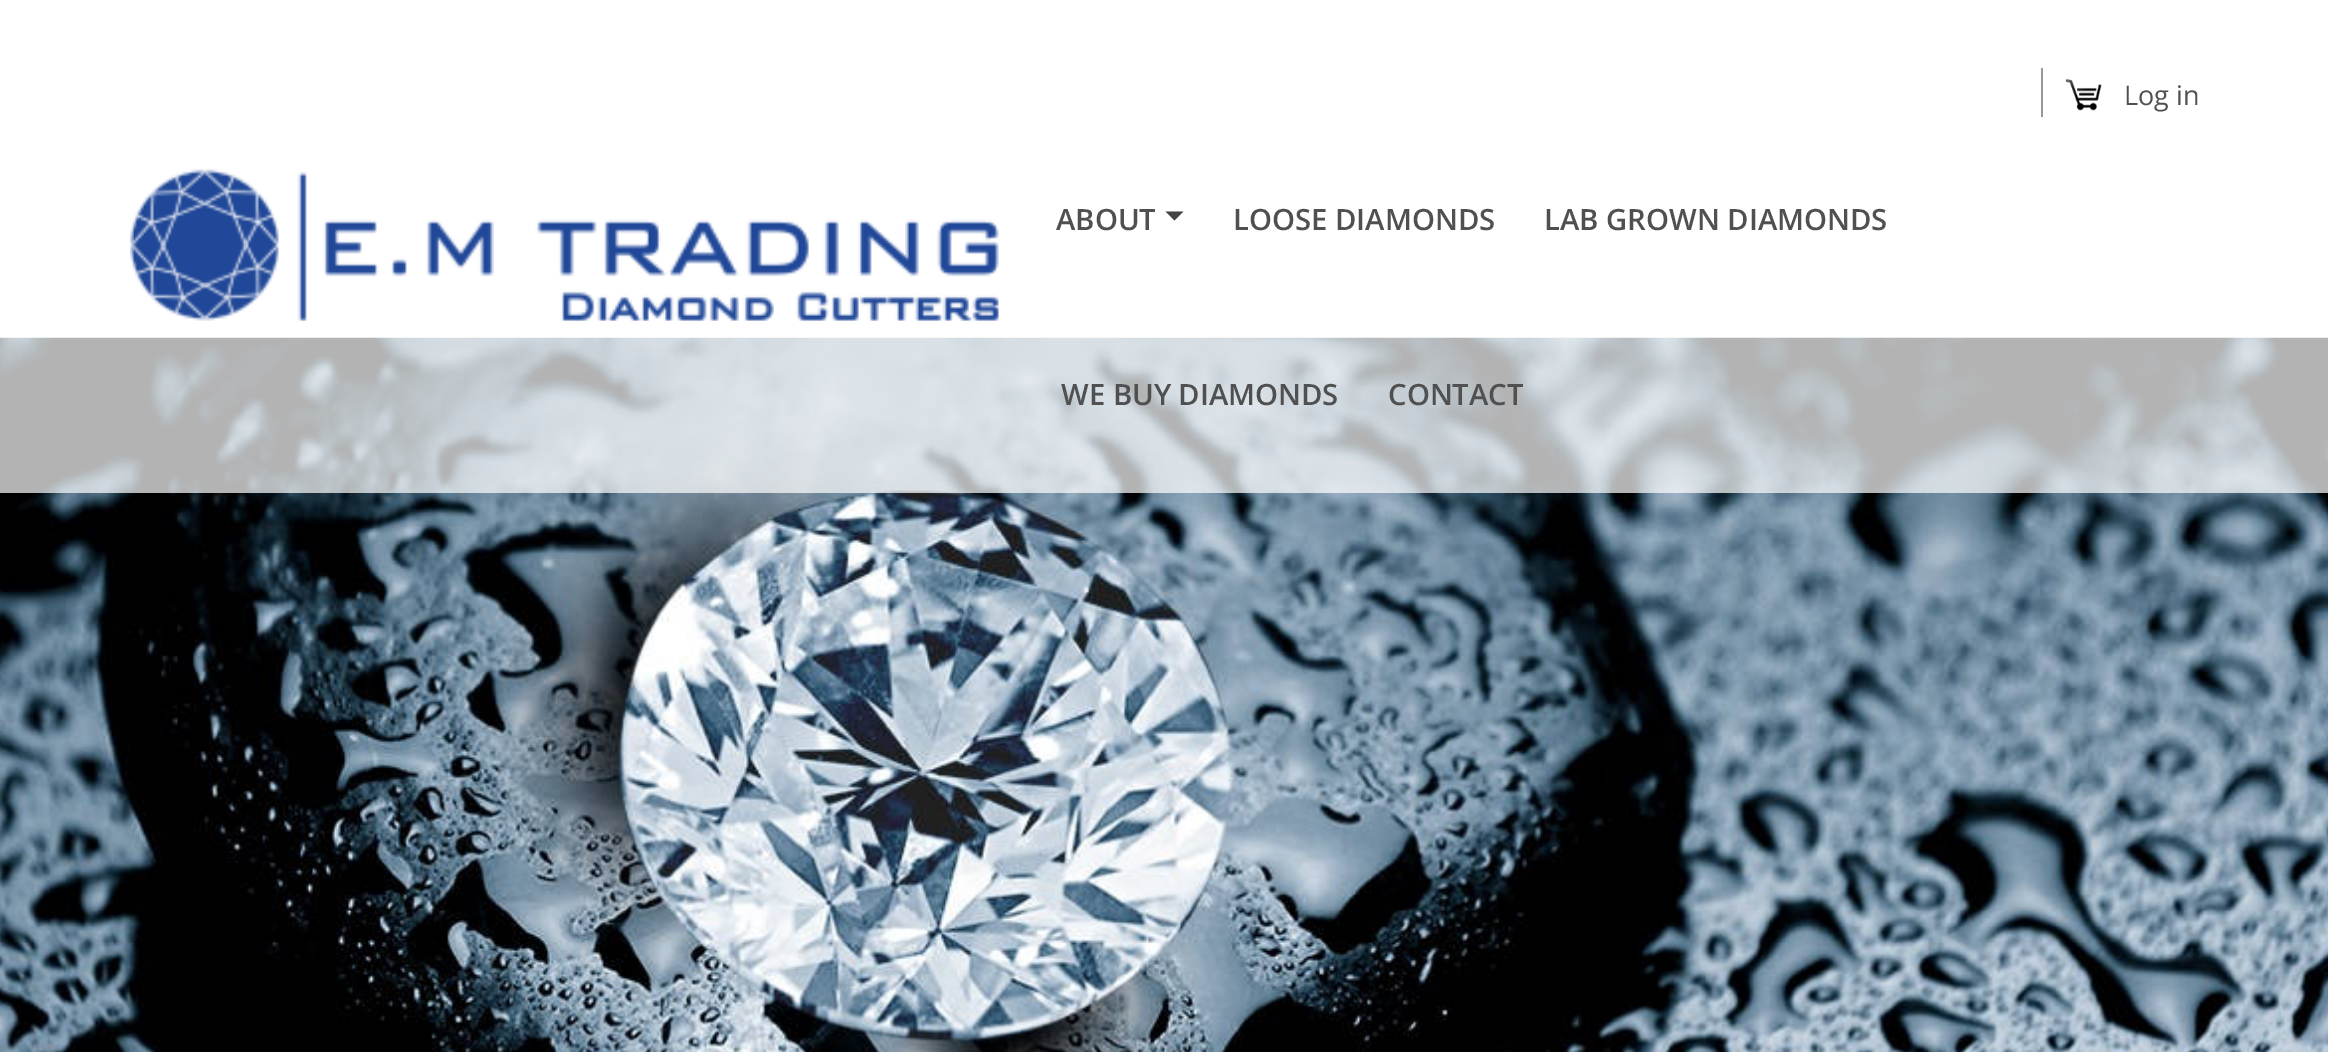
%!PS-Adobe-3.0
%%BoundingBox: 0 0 2328 1052
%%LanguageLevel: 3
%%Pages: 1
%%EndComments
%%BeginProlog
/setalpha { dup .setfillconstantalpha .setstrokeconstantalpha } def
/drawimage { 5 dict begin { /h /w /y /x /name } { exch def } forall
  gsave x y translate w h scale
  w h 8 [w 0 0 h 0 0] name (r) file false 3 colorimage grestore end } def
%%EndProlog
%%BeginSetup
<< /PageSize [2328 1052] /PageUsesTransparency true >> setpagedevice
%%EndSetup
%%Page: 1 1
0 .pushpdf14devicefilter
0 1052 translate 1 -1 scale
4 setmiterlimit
1 setgray
0 0 2328 1052 rectfill
(images/1.raw) 129 168 870 153 drawimage
0.6 setgray
2041 68 2 49 rectfill
(images/2.raw) 2065 78 37 33 drawimage
0.267 setgray
newpath 1165.5 211.5 moveto 1183.5 211.5 lineto 1174.5 220.5 lineto closepath fill
(images/3.raw) 0 337 2328 715 drawimage
0.7 setalpha
1 setgray
0 337 2328 156 rectfill
/OpenSans-Regular [27 0 0 -27 0 0] selectfont
1 setalpha
0.314 setgray
2124 105 moveto (Log in) show
/OpenSans-SemiBold [29.25 0 0 -29.25 0 0] selectfont
1056 230 moveto (ABOUT) show
1233 230 moveto (LOOSE DIAMONDS) show
1544 230 moveto (LAB GROWN DIAMONDS) show
1061 405 moveto (WE BUY DIAMONDS) show
1388 405 moveto (CONTACT) show
.poppdf14devicefilter showpage
%%EOF
